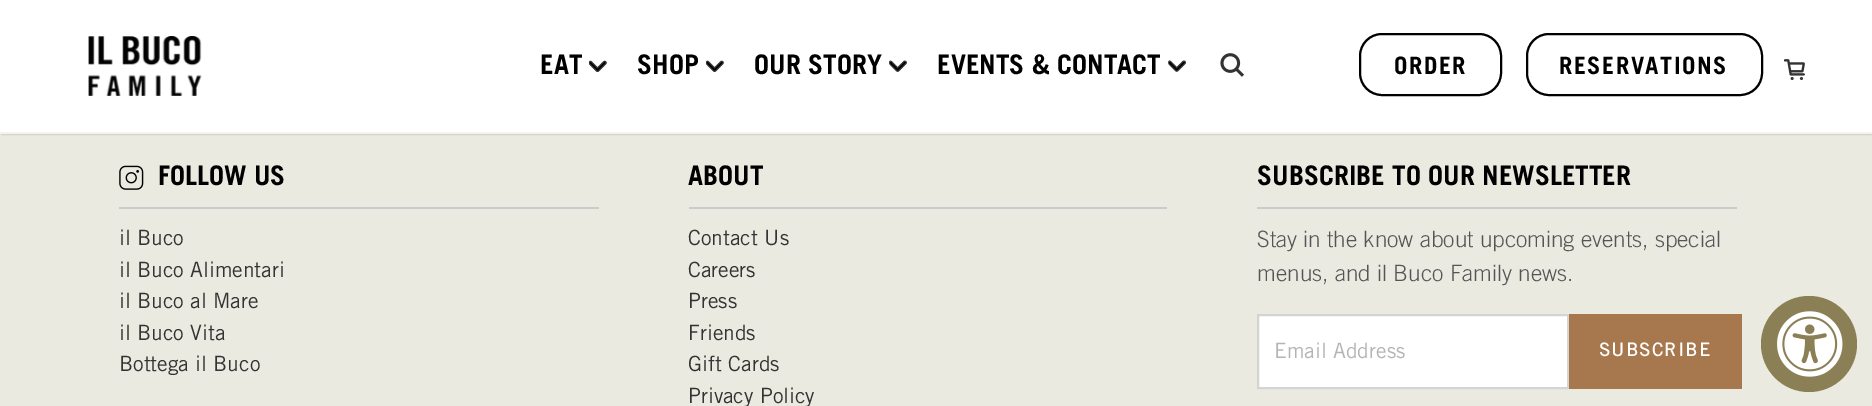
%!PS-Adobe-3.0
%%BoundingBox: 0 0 1872 406
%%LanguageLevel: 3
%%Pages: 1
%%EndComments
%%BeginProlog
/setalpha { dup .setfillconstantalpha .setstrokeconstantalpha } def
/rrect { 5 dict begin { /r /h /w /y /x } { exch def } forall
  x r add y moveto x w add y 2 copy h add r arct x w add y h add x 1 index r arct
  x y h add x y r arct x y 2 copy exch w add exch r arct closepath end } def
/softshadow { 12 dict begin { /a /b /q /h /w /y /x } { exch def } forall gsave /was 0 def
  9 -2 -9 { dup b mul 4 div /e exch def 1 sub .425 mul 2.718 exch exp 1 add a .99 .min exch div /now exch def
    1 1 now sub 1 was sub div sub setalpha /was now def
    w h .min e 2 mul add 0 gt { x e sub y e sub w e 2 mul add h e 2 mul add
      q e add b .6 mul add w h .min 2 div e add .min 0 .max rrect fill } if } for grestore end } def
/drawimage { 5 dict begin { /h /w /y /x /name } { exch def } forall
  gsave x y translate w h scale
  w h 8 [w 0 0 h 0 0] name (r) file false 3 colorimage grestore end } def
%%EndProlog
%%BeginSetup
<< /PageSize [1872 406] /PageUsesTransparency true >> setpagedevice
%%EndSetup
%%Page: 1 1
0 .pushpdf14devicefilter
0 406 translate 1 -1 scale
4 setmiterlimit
0.922 0.918 0.882 setrgbcolor
0 0 1872 406 rectfill
0 setgray
2 3 1869 131 0 1 0.3 softshadow
1 setgray
0 0 1872 132 rectfill
0.957 0.953 0.929 setrgbcolor
0 132 1872 2 rectfill
(images/1.raw) 88 36 114 60 drawimage
(images/2.raw) 589 60 18 12 drawimage
(images/3.raw) 706 60 18 12 drawimage
(images/4.raw) 889 60 18 12 drawimage
(images/5.raw) 1168 60 18 12 drawimage
(images/6.raw) 1220 53 24 24 drawimage
0 setgray
2 setlinewidth
1360 34 141 61 22 rrect stroke
1527 34 235 61 22 rrect stroke
(images/7.raw) 1784 59 21 21 drawimage
0.8 setgray
119 207 480 2 rectfill
(images/8.raw) 119 165 25 25 drawimage
689 207 478 2 rectfill
1257 207 480 2 rectfill
1 setgray
newpath 1258 315 moveto 1568 315 lineto 1568 388 lineto 1258 388 lineto closepath gsave fill grestore
0.831 setgray
stroke
0.655 0.471 0.302 setrgbcolor
1569 314 173 75 rectfill
0.545 0.502 0.333 setrgbcolor
newpath 1809 344 48 0 360 arc closepath fill
(images/9.raw) 1777 311 66 66 drawimage
/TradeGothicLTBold-Bold [27 0 0 -27 0 0] selectfont
0 setgray
540 74 moveto (EAT) show
637 74 moveto (SHOP) show
754 74 moveto (OUR STORY) show
937 74 moveto (EVENTS & CONTACT) show
/TradeGothicLTBold-Bold [24 0 0 -24 0 0] selectfont
1394 74 moveto 1.5 0 (ORDER) ashow
1559 74 moveto 1.5 0 (RESERVATIONS) ashow
/TradeGothicLTBold-Bold [27 0 0 -27 0 0] selectfont
158 185 moveto (FOLLOW US) show
/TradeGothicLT-Regular [21 0 0 -21 0 0] selectfont
0.2 setgray
119 245 moveto (il Buco) show
119 277 moveto (il Buco Alimentari) show
119 308 moveto (il Buco al Mare) show
119 340 moveto (il Buco Vita) show
119 371 moveto (Bottega il Buco) show
/TradeGothicLTBold-Bold [27 0 0 -27 0 0] selectfont
0 setgray
688 185 moveto (ABOUT) show
/TradeGothicLT-Regular [21 0 0 -21 0 0] selectfont
0.2 setgray
688 245 moveto (Contact Us) show
688 277 moveto (Careers) show
688 308 moveto (Press) show
688 340 moveto (Friends) show
688 371 moveto (Gift Cards) show
688 403 moveto (Privacy Policy) show
/TradeGothicLTBold-Bold [27 0 0 -27 0 0] selectfont
0 setgray
1257 185 moveto (SUBSCRIBE TO OUR NEWSLETTER) show
/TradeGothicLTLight-Light [22.5 0 0 -22.5 0 0] selectfont
0.333 setgray
1257 247 moveto (Stay in the know about upcoming events, special) show
1257 281 moveto (menus, and il Buco Family news.) show
/TradeGothicLT-Regular [21 0 0 -21 0 0] selectfont
0.706 setgray
1274 358 moveto (Email Address) show
/TradeGothicLT-Bold [18 0 0 -18 0 0] selectfont
1 setgray
1599 356 moveto 1.5 0 (SUBSCRIBE) ashow
.poppdf14devicefilter showpage
%%EOF
